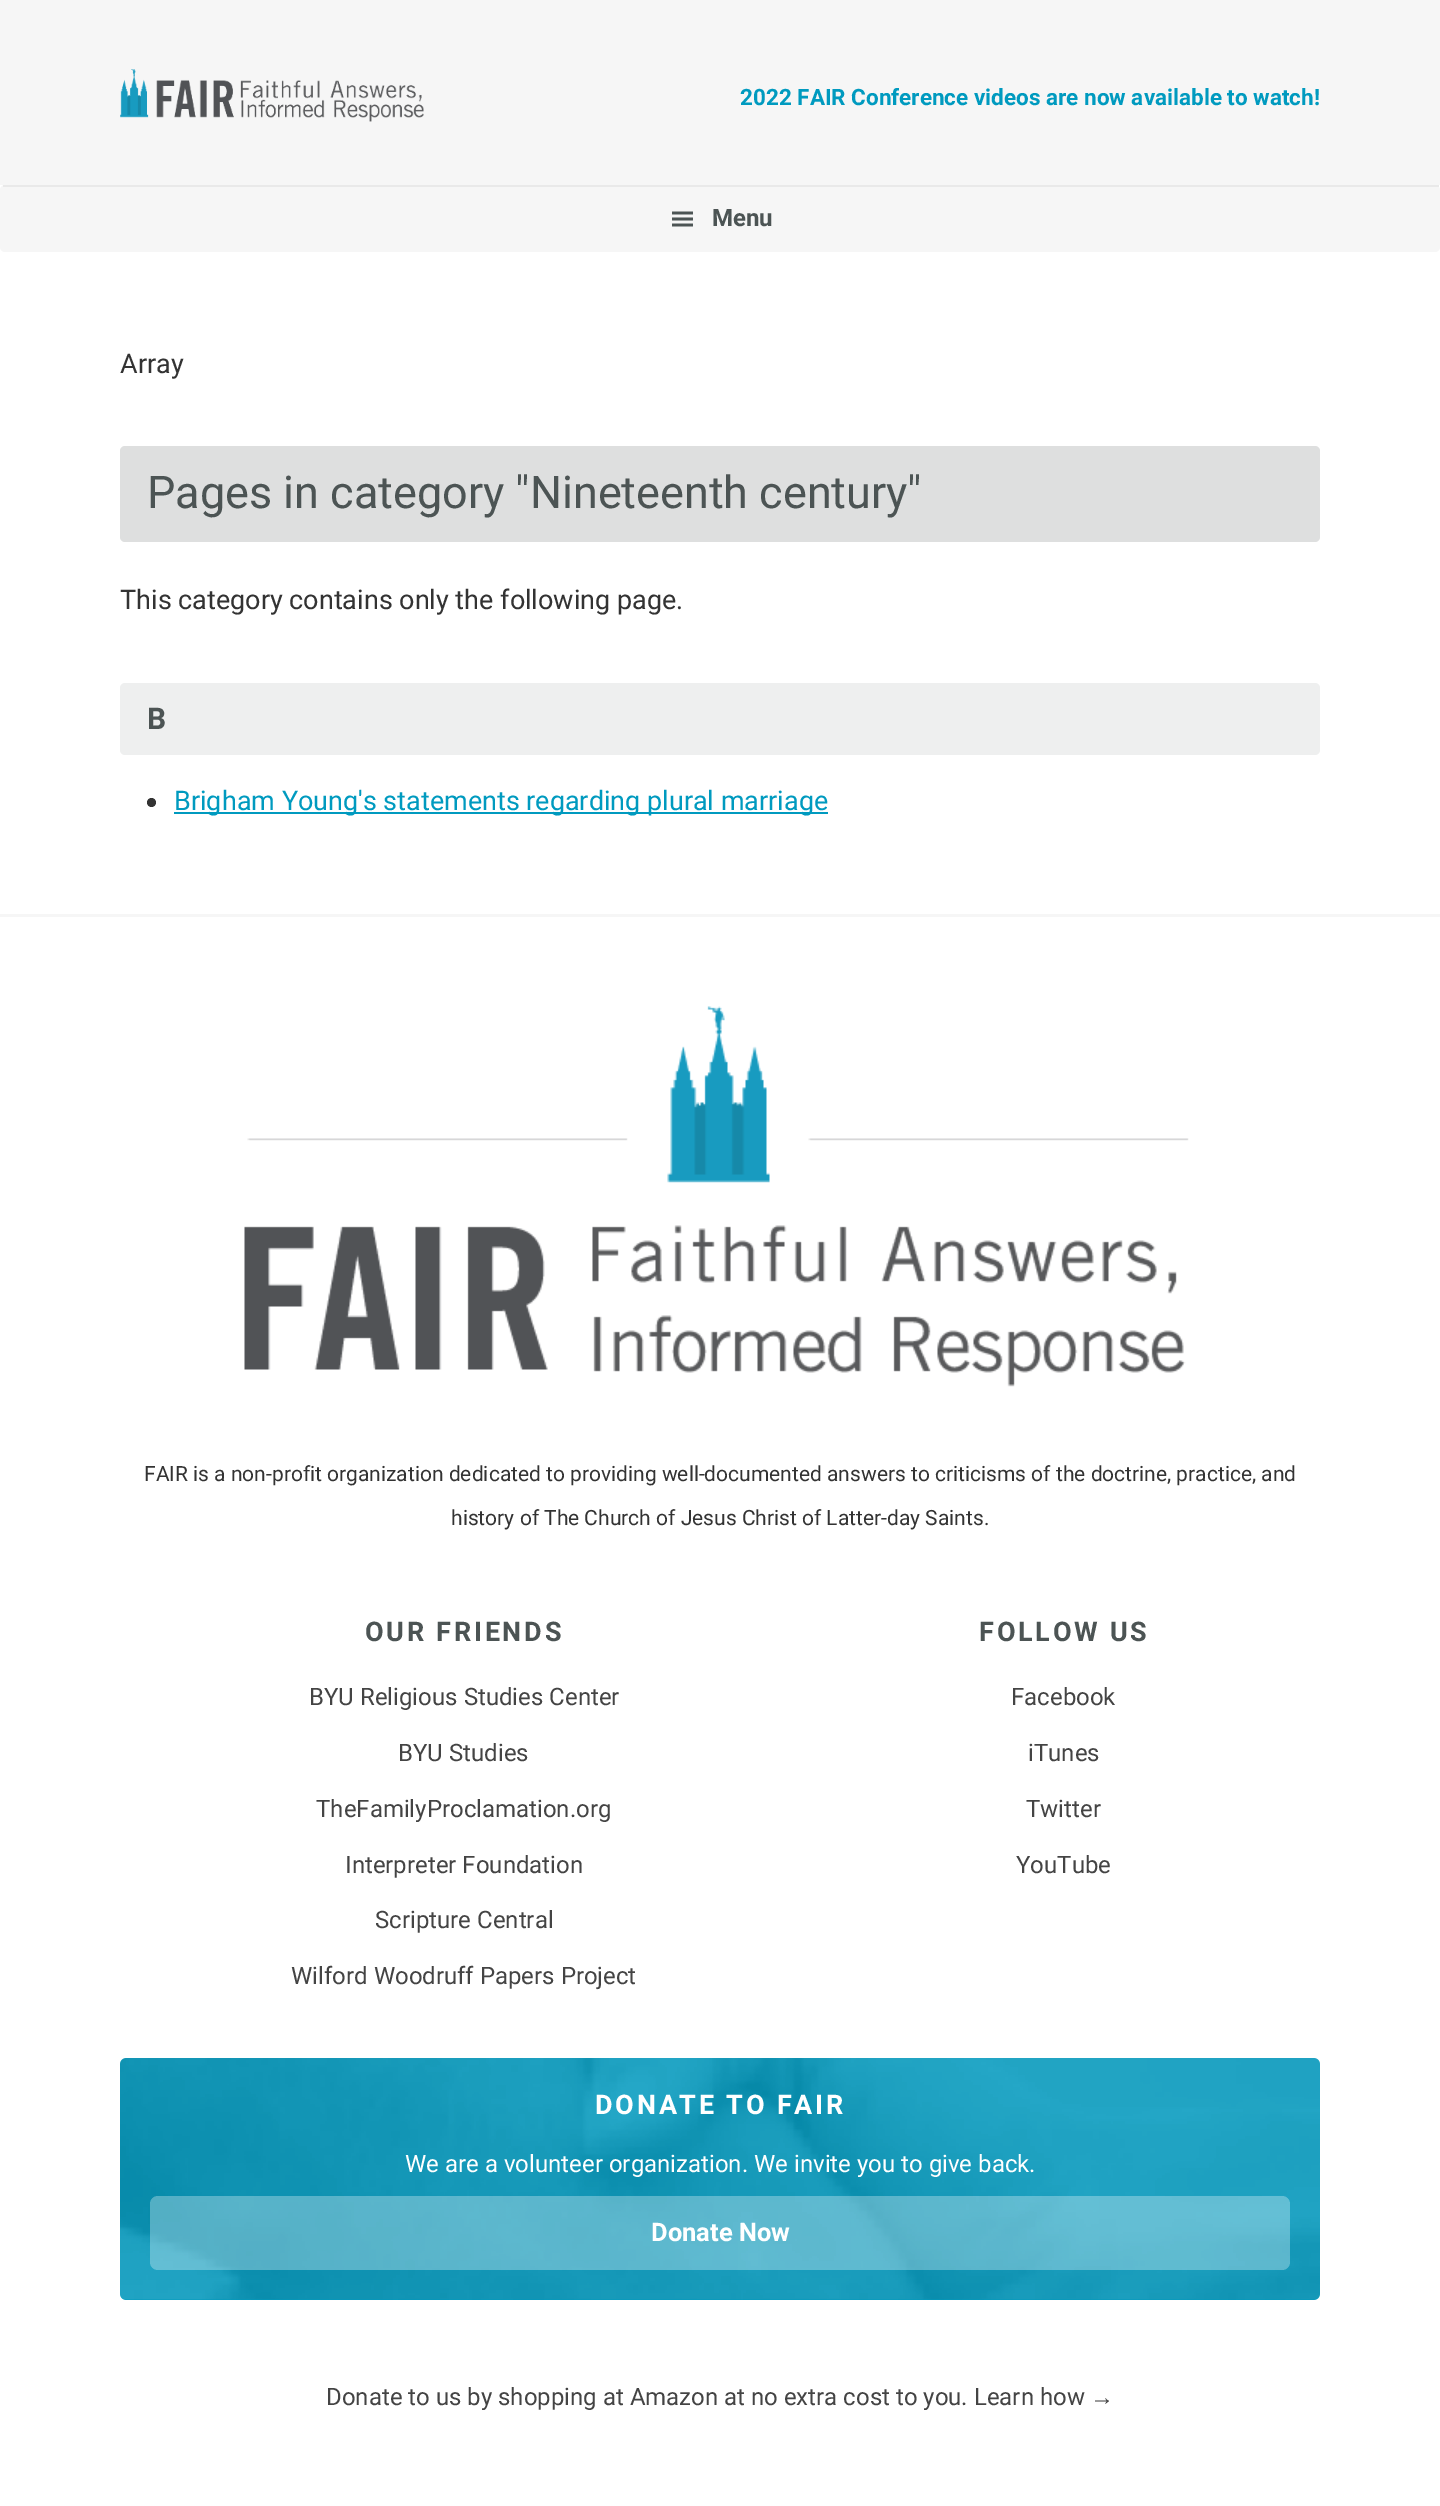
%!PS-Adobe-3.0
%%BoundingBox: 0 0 1440 2506
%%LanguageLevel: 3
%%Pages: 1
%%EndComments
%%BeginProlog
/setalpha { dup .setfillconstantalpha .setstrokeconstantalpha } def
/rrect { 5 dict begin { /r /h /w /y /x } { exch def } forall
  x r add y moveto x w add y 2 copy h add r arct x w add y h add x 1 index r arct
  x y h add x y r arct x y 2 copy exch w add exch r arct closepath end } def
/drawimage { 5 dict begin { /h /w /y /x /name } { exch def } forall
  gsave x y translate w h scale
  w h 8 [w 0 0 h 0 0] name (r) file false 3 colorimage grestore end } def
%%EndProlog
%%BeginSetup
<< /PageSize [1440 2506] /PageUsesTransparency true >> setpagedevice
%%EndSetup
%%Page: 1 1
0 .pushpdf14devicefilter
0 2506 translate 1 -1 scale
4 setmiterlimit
1 setgray
0 0 1440 2506 rectfill
0.965 setgray
0 0 1440 185 rectfill
(images/1.raw) 120 69 304 53 drawimage
0 185 1440 67 5 rrect fill
0.914 setgray
3 185 1436 2 rectfill
(images/2.raw) 672 211 21 16 drawimage
0.871 0.875 0.875 setrgbcolor
120 446 1200 96 5 rrect fill
0.933 0.937 0.937 setrgbcolor
120 683 1200 72 5 rrect fill
0.2 setgray
newpath 151.5 802.5 4.5 0 360 arc closepath fill
0 0.604 0.749 setrgbcolor
174 812 654 2 rectfill
0.965 setgray
0 914 1440 3 rectfill
(images/3.raw) 244 1006 945 381 drawimage
0 0.604 0.749 setrgbcolor
120 2058 1200 242 6 rrect fill
(images/4.raw) 120 2058 1200 242 drawimage
0.3 setalpha
1 setgray
150 2196 1140 74 8 rrect fill
/Roboto-Bold [22.5 0 0 -22.5 0 0] selectfont
1 setalpha
0 0.604 0.749 setrgbcolor
740 105 moveto (2022 FAIR Conference videos are now available to watch!) show
/Roboto-Bold [24 0 0 -24 0 0] selectfont
0.298 0.329 0.329 setrgbcolor
712 226 moveto (Menu) show
/Roboto-Regular [27 0 0 -27 0 0] selectfont
0.2 setgray
120 373 moveto (Array) show
/Roboto-Regular [45 0 0 -45 0 0] selectfont
0.298 0.329 0.329 setrgbcolor
147 508 moveto (Pages in category "Nineteenth century") show
/Roboto-Regular [27 0 0 -27 0 0] selectfont
0.2 setgray
120 609 moveto (This category contains only the following page.) show
/Roboto-Bold [30 0 0 -30 0 0] selectfont
0.298 0.329 0.329 setrgbcolor
147 729 moveto (B) show
/Roboto-Regular [27 0 0 -27 0 0] selectfont
0 0.604 0.749 setrgbcolor
174 810 moveto (Brigham Young's statements regarding plural marriage) show
/Roboto-Regular [21 0 0 -21 0 0] selectfont
0.2 setgray
144 1481 moveto (FAIR is a non-profit organization dedicated to providing well-documented answers to criticisms of the doctrine, practice, and) show
451 1525 moveto (history of The Church of Jesus Christ of Latter-day Saints.) show
/Roboto-Bold [27 0 0 -27 0 0] selectfont
0.298 0.329 0.329 setrgbcolor
365 1641 moveto 2.75 0 (OUR FRIENDS) ashow
/Roboto-Regular [24 0 0 -24 0 0] selectfont
0.267 setgray
309 1705 moveto (BYU Religious Studies Center) show
398 1761 moveto (BYU Studies) show
316 1817 moveto (TheFamilyProclamation.org) show
345 1873 moveto (Interpreter Foundation) show
375 1928 moveto (Scripture Central) show
291 1984 moveto (Wilford Woodruff Papers Project) show
/Roboto-Bold [27 0 0 -27 0 0] selectfont
0.298 0.329 0.329 setrgbcolor
979 1641 moveto 2.75 0 (FOLLOW US) ashow
/Roboto-Regular [24 0 0 -24 0 0] selectfont
0.267 setgray
1011 1705 moveto (Facebook) show
1028 1761 moveto (iTunes) show
1026 1817 moveto (Twitter) show
1016 1873 moveto (YouTube) show
/Roboto-Bold [27 0 0 -27 0 0] selectfont
1 setgray
595 2114 moveto 2.75 0 (DONATE TO FAIR) ashow
/Roboto-Regular [24 0 0 -24 0 0] selectfont
405 2172 moveto (We are a volunteer organization. We invite you to give back.) show
/Roboto-Bold [25.5 0 0 -25.5 0 0] selectfont
651 2241 moveto (Donate Now) show
/Roboto-Regular [24 0 0 -24 0 0] selectfont
0.267 setgray
326 2405 moveto (Donate to us by shopping at Amazon at no extra cost to you. Learn how) show
/LiberationSans-Regular [24 0 0 -24 0 0] selectfont
1090 2405 moveto (→) show
.poppdf14devicefilter showpage
%%EOF
